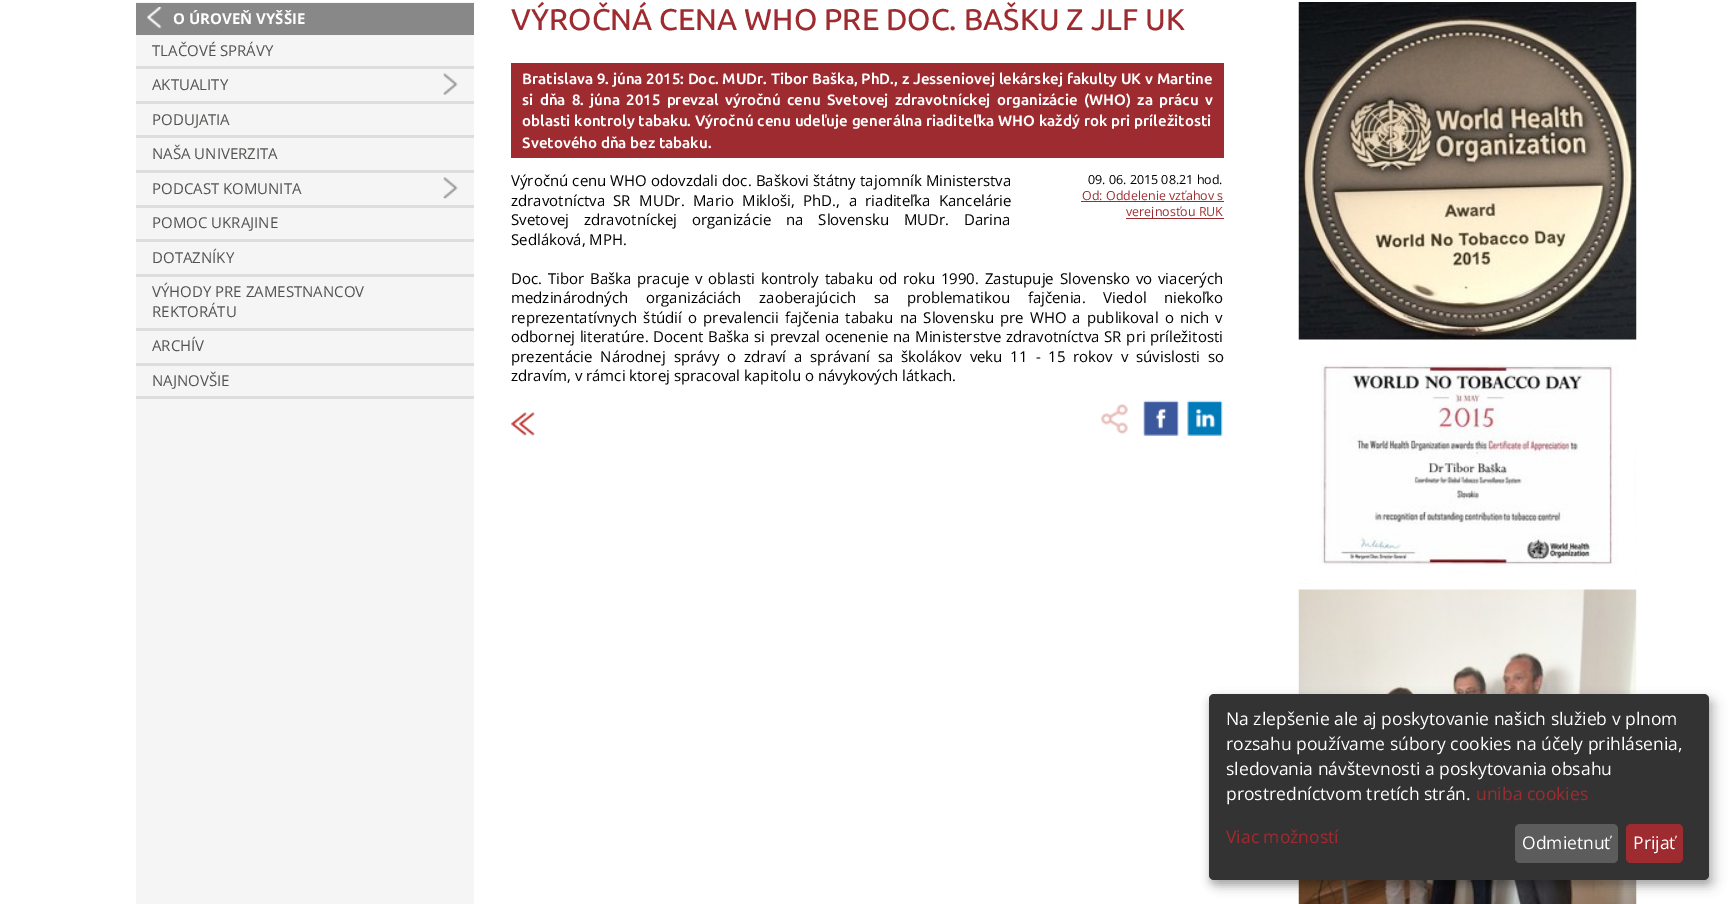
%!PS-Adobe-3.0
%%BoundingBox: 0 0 1733 904
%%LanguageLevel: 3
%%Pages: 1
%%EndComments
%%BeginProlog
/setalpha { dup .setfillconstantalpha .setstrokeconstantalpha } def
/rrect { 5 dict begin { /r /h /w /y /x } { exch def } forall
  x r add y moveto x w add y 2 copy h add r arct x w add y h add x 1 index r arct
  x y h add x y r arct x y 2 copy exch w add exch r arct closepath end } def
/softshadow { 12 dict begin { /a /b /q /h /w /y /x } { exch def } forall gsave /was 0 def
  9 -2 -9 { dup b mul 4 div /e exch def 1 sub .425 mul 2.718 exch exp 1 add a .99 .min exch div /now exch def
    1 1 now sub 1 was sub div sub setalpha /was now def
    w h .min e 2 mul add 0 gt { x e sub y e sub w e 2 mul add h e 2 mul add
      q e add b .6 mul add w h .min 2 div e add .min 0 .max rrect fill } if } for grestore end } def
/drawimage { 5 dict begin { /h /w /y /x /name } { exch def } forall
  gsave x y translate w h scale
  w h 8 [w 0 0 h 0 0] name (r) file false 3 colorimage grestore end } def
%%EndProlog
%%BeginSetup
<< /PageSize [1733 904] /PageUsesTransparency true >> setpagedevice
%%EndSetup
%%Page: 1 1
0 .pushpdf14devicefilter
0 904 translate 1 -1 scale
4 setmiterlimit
1 setgray
0 0 1733 904 rectfill
0.961 setgray
136 2 338 902 rectfill
0.533 setgray
136 3 338 32 rectfill
(images/1.raw) 147 7 15 22 drawimage
0.867 setgray
136 66 338 3 rectfill
136 101 338 3 rectfill
(images/2.raw) 443 73 15 22 drawimage
136 135 338 3 rectfill
136 170 338 3 rectfill
136 205 338 3 rectfill
(images/3.raw) 443 177 15 22 drawimage
136 239 338 3 rectfill
136 274 338 3 rectfill
136 328 338 3 rectfill
136 363 338 3 rectfill
136 396 338 3 rectfill
0.62 0.169 0.184 setrgbcolor
511 63 713 95 rectfill
1081 201 143 1 rectfill
1126 218 98 1 rectfill
(images/4.raw) 511 412 24 24 drawimage
(images/5.raw) 1101 404 27 30 drawimage
(images/6.raw) 1143 400 36 36 drawimage
(images/7.raw) 1187 400 36 36 drawimage
(images/8.raw) 1298 2 339 338 drawimage
(images/9.raw) 1299 345 337 239 drawimage
(images/10.raw) 1298 589 339 315 drawimage
0 setgray
1215 700 500 186 5 6 0.19 softshadow
1209 699 500 186 5 4 0.2 softshadow
0.2 setgray
1209 694 500 186 5 rrect fill
0.361 setgray
1515 824 103 39 5 rrect fill
0.62 0.169 0.184 setrgbcolor
1626 824 57 39 5 rrect fill
/OpenSans-Bold [15 0 0 -15 0 0] selectfont
1 setgray
173 24 moveto (O ÚROVEŇ VYŠŠIE) show
/OpenSans-Regular [15 0 0 -15 0 0] selectfont
0.325 0.322 0.314 setrgbcolor
152 56 moveto (TLAČOVÉ SPRÁVY) show
152 90 moveto (AKTUALITY) show
152 125 moveto (PODUJATIA) show
152 159 moveto (NAŠA UNIVERZITA) show
152 194 moveto (PODCAST KOMUNITA) show
152 228 moveto (POMOC UKRAJINE) show
152 263 moveto (DOTAZNÍKY) show
152 297 moveto (VÝHODY PRE ZAMESTNANCOV) show
152 317 moveto (REKTORÁTU) show
152 351 moveto (ARCHÍV) show
152 386 moveto (NAJNOVŠIE) show
/Ubuntu-Medium [30 0 0 -30 0 0] selectfont
0.62 0.169 0.184 setrgbcolor
511 30 moveto (VÝROČNÁ CENA WHO PRE DOC. BAŠKU Z JLF UK) show
/Ubuntu-Bold [15 0 0 -15 0 0] selectfont
1 setgray
522 84 moveto 0.25 0 32 (Bratislava 9. júna 2015: Doc. MUDr. Tibor Baška, PhD., z Jesseniovej lekárskej fakulty UK v Martine) widthshow
522 105 moveto 2.75 0 32 (si dňa 8. júna 2015 prevzal výročnú cenu Svetovej zdravotníckej organizácie \(WHO\) za prácu v) widthshow
522 126 moveto 0.25 0 32 (oblasti kontroly tabaku. Výročnú cenu udeľuje generálna riaditeľka WHO každý rok pri príležitosti) widthshow
522 148 moveto (Svetového dňa bez tabaku.) show
/OpenSans-Regular [15 0 0 -15 0 0] selectfont
0 setgray
511 186 moveto 0.25 0 32 (Výročnú cenu WHO odovzdali doc. Baškovi štátny tajomník Ministerstva) widthshow
511 206 moveto 4.5 0 32 (zdravotníctva SR MUDr. Mario Mikloši, PhD., a riaditeľka Kancelárie) widthshow
511 225 moveto 11 0 32 (Svetovej zdravotníckej organizácie na Slovensku MUDr. Darina) widthshow
511 245 moveto (Sedláková, MPH.) show
511 284 moveto 1.9 0 32 (Doc. Tibor Baška pracuje v oblasti kontroly tabaku od roku 1990. Zastupuje Slovensko vo viacerých) widthshow
511 303 moveto 13.75 0 32 (medzinárodných organizáciách zaoberajúcich sa problematikou fajčenia. Viedol niekoľko) widthshow
511 323 moveto 2.25 0 32 (reprezentatívnych štúdií o prevalencii fajčenia tabaku na Slovensku pre WHO a publikoval o nich v) widthshow
511 342 moveto 0.8 0 32 (odbornej literatúre. Docent Baška si prevzal ocenenie na Ministerstve zdravotníctva SR pri príležitosti) widthshow
511 362 moveto 4 0 32 (prezentácie Národnej správy o zdraví a správaní sa školákov veku 11 - 15 rokov v súvislosti so) widthshow
511 381 moveto (zdravím, v rámci ktorej spracoval kapitolu o návykových látkach.) show
/OpenSans-Regular [12.5 0 0 -12.5 0 0] selectfont
1088 184 moveto (09. 06. 2015 08.21 hod.) show
0.62 0.169 0.184 setrgbcolor
1082 200 moveto (Od: Oddelenie vzťahov s) show
1126 216 moveto (verejnosťou RUK) show
/OpenSans-Regular [17.5 0 0 -17.5 0 0] selectfont
1 setgray
1226 725 moveto (Na zlepšenie ale aj poskytovanie našich služieb v plnom) show
1226 750 moveto (rozsahu používame súbory cookies na účely prihlásenia,) show
1226 775 moveto (sledovania návštevnosti a poskytovania obsahu) show
1226 800 moveto (prostredníctvom tretích strán.) show
0.62 0.169 0.184 setrgbcolor
1476 800 moveto (uniba cookies) show
1226 843 moveto (Viac možností) show
1 setgray
1522 849 moveto (Odmietnuť) show
1633 849 moveto (Prijať) show
.poppdf14devicefilter showpage
%%EOF
